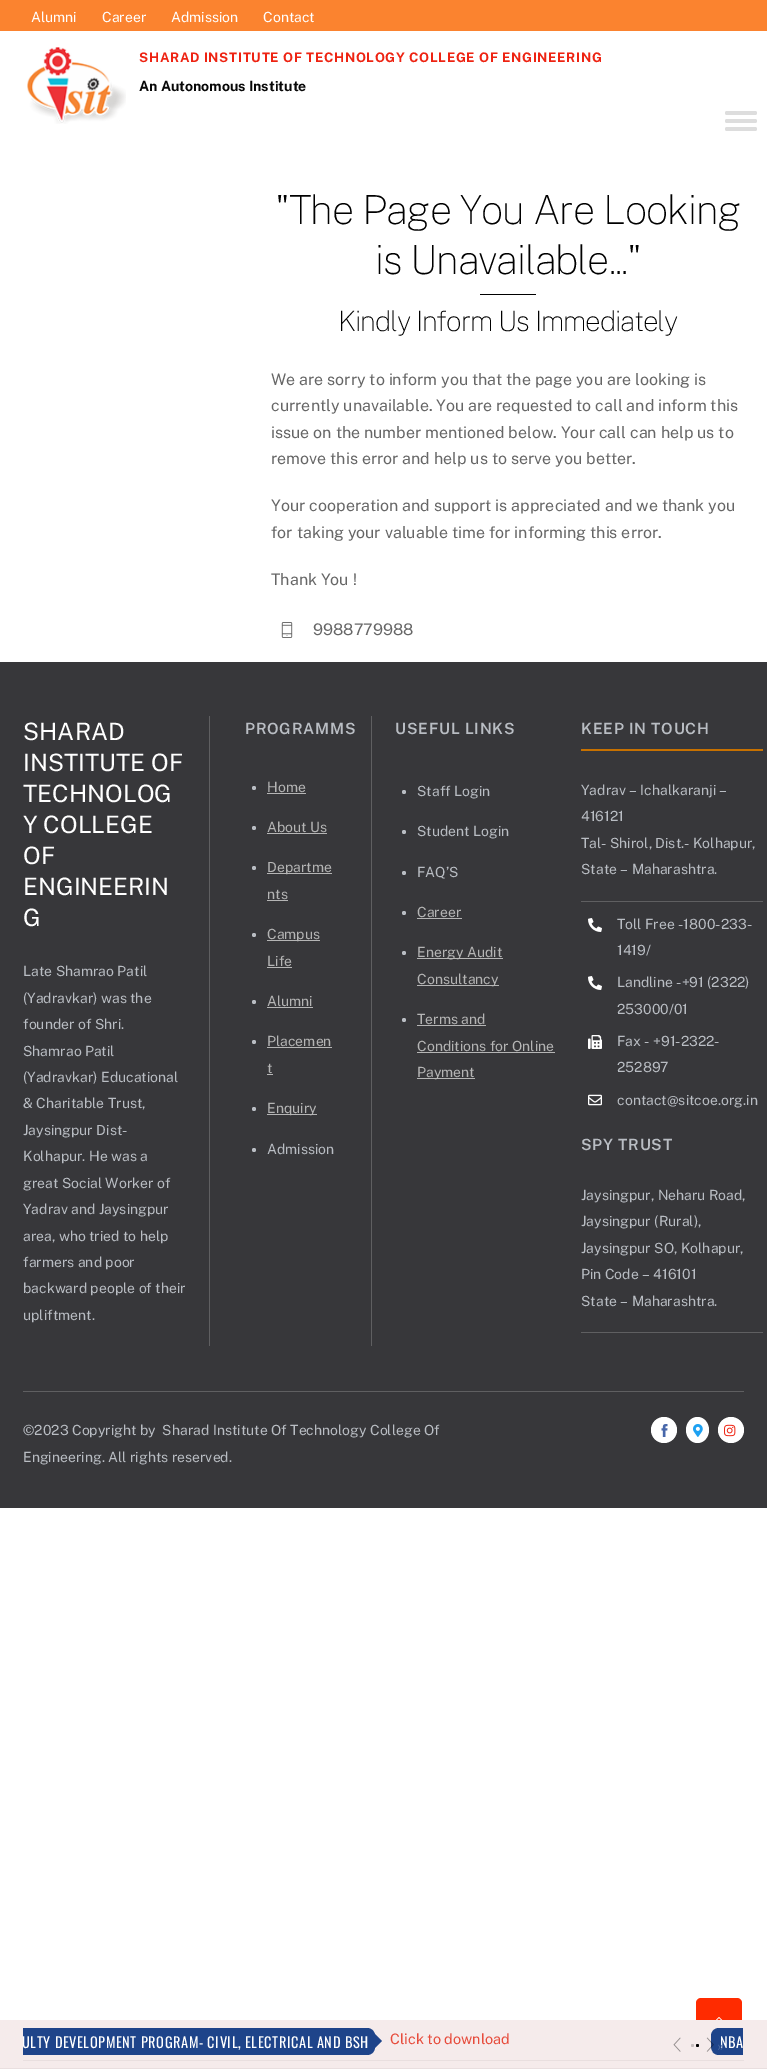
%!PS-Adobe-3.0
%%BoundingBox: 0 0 767 2069
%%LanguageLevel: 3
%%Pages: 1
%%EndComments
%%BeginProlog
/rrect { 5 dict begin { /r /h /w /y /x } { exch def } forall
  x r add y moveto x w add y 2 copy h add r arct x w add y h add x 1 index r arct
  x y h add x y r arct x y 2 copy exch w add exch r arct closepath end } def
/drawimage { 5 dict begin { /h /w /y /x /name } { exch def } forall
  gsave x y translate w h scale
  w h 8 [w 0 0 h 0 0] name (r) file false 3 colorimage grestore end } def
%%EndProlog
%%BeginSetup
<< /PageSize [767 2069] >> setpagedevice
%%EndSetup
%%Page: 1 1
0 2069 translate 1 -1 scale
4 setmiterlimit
1 setgray
0 0 767 2069 rectfill
0.984 0.514 0.184 setrgbcolor
0 0 767 31 rectfill
(images/1.raw) 27 47 99 77 drawimage
0.867 setgray
725 111 32 4 2 rrect fill
725 119 32 4 2 rrect fill
725 127 32 4 2 rrect fill
0 setgray
480 294 56 1 rectfill
(images/2.raw) 281 622 12 16 drawimage
0.216 0.216 0.227 setrgbcolor
0 662 767 846 rectfill
0.373 0.373 0.38 setrgbcolor
371 716 1 630 rectfill
209 716 1 630 rectfill
0.725 0.741 0.765 setrgbcolor
newpath 254 788 2 0 360 arc closepath fill
0.71 setgray
267 793 39 1 rectfill
0.725 0.741 0.765 setrgbcolor
newpath 254 828 2 0 360 arc closepath fill
0.71 setgray
267 833 60 1 rectfill
0.725 0.741 0.765 setrgbcolor
newpath 254 868 2 0 360 arc closepath fill
0.71 setgray
267 873 65 1 rectfill
267 900 21 1 rectfill
0.725 0.741 0.765 setrgbcolor
newpath 254 935 2 0 360 arc closepath fill
0.71 setgray
267 940 53 1 rectfill
267 967 25 1 rectfill
0.725 0.741 0.765 setrgbcolor
newpath 254 1002 2 0 360 arc closepath fill
0.71 setgray
267 1007 46 1 rectfill
0.725 0.741 0.765 setrgbcolor
newpath 254 1042 2 0 360 arc closepath fill
0.71 setgray
267 1047 65 1 rectfill
267 1074 6 1 rectfill
0.725 0.741 0.765 setrgbcolor
newpath 254 1109 2 0 360 arc closepath fill
0.71 setgray
267 1114 50 1 rectfill
0.725 0.741 0.765 setrgbcolor
newpath 254 1150 2 0 360 arc closepath fill
newpath 404 792 2 0 360 arc closepath fill
newpath 404 832 2 0 360 arc closepath fill
newpath 404 873 2 0 360 arc closepath fill
newpath 404 913 2 0 360 arc closepath fill
0.71 setgray
417 918 45 1 rectfill
0.725 0.741 0.765 setrgbcolor
newpath 404 953 2 0 360 arc closepath fill
0.71 setgray
417 958 86 1 rectfill
417 985 82 1 rectfill
0.725 0.741 0.765 setrgbcolor
newpath 404 1020 2 0 360 arc closepath fill
0.71 setgray
417 1025 69 1 rectfill
417 1052 138 1 rectfill
417 1078 58 1 rectfill
0.78 0.443 0 setrgbcolor
581 749 182 2 rectfill
0.373 0.373 0.38 setrgbcolor
581 901 182 1 rectfill
(images/3.raw) 588 918 14 14 drawimage
(images/3.raw) 588 976 14 14 drawimage
(images/4.raw) 588 1035 14 14 drawimage
(images/5.raw) 588 1094 14 12 drawimage
581 1332 182 1 rectfill
23 1391 721 1 rectfill
1 setgray
newpath 664 1430 13 0 360 arc closepath fill
(images/6.raw) 661 1424 7 13 drawimage
newpath 697.5 1417 moveto 704 1417 709 1423 709 1430 curveto 709 1437 704 1443 697.5 1443 curveto 691 1443 686 1437 686 1430 curveto 686 1423 691 1417 697.5 1417 curveto closepath fill
(images/7.raw) 693 1424 10 13 drawimage
newpath 731 1430 13 0 360 arc closepath fill
(images/8.raw) 724 1424 12 13 drawimage
1 0.169 0 setrgbcolor
696 1998 46 46 5 rrect fill
(images/9.raw) 716 2017 7 3 drawimage
0.961 0.922 0.922 setrgbcolor
0 2020 767 48 rectfill
0.914 0.875 0.875 setrgbcolor
0 2068 767 1 rectfill
0.118 0.267 0.541 setrgbcolor
newpath 23 2028 moveto 367 2028 lineto 371.5 2028 375 2031.5 375 2036 curveto 375 2047 lineto 375 2051.5 371.5 2055 367 2055 curveto 23 2055 lineto closepath fill
newpath 374 2049 moveto 374 2033 lineto 382 2041 lineto closepath fill
newpath 719 2028 moveto 743 2028 lineto 743 2055 lineto 719 2055 lineto 714.5 2055 711 2051.5 711 2047 curveto 711 2036 lineto 711 2031.5 714.5 2028 719 2028 curveto closepath fill
(images/10.raw) 673 2037 8 15 drawimage
0.769 0.737 0.737 setrgbcolor
newpath 692.5 2045.5 1.5 0 360 arc closepath fill
0 setgray
newpath 697.5 2045.5 1.5 0 360 arc closepath fill
(images/11.raw) 706 2037 8 15 drawimage
0.914 0.875 0.875 setrgbcolor
23 2060 721 1 rectfill
/PublicSans-Regular [14 0 0 -14 0 0] selectfont
1 setgray
31 22 moveto (Alumni) show
102 22 moveto (Career) show
171 22 moveto (Admission) show
263 22 moveto (Contact) show
/PublicSans-Bold [13.2 0 0 -13.2 0 0] selectfont
0.933 0.137 0.071 setrgbcolor
139 62 moveto 0.65 0 (SHARAD INSTITUTE OF TECHNOLOGY COLLEGE OF ENGINEERING) ashow
/PublicSans-Bold [14 0 0 -14 0 0] selectfont
0.031 setgray
139 91 moveto (An Autonomous Institute) show
/PublicSans-Thin [40 0 0 -40 0 0] selectfont
0 setgray
275 224 moveto -1.15 0 ("The Page You Are Looking) ashow
375 274 moveto -1.15 0 (is Unavailable...") ashow
/PublicSans-Thin [28 0 0 -28 0 0] selectfont
338 331 moveto -1.15 0 (Kindly Inform Us Immediately) ashow
/PublicSans-Regular [16 0 0 -16 0 0] selectfont
0.4 setgray
271 385 moveto (We are sorry to inform you that the page you are looking is) show
271 411 moveto (currently unavailable. You are requested to call and inform this) show
271 438 moveto (issue on the number mentioned below. Your call can help us to) show
271 464 moveto (remove this error and help us to serve you better.) show
271 511 moveto (Your cooperation and support is appreciated and we thank you) show
271 538 moveto (for taking your valuable time for informing this error.) show
271 585 moveto (Thank You !) show
313 635 moveto (9988779988) show
/PublicSans-Regular [24 0 0 -24 0 0] selectfont
1 setgray
23 740 moveto (SHARAD) show
23 771 moveto (INSTITUTE OF) show
23 802 moveto (TECHNOLOG) show
23 833 moveto (Y COLLEGE) show
23 864 moveto (OF) show
23 895 moveto (ENGINEERIN) show
23 926 moveto (G) show
/PublicSans-Regular [14 0 0 -14 0 0] selectfont
0.725 0.741 0.765 setrgbcolor
23 976 moveto (Late Shamrao Patil) show
23 1003 moveto (\(Yadravkar\) was the) show
23 1029 moveto (founder of Shri.) show
23 1056 moveto (Shamrao Patil) show
23 1082 moveto (\(Yadravkar\) Educational) show
23 1108 moveto (& Charitable Trust,) show
23 1135 moveto (Jaysingpur Dist-) show
23 1161 moveto (Kolhapur. He was a) show
23 1188 moveto (great Social Worker of) show
23 1214 moveto (Yadrav and Jaysingpur) show
23 1241 moveto (area, who tried to help) show
23 1267 moveto (farmers and poor) show
23 1293 moveto (backward people of their) show
23 1320 moveto (upliftment.) show
/PublicSans-SemiBold [15.5 0 0 -15.5 0 0] selectfont
245 734 moveto 0.75 0 (PROGRAMMS) ashow
/PublicSans-Regular [14 0 0 -14 0 0] selectfont
0.71 setgray
267 792 moveto (Home) show
267 832 moveto (About Us) show
267 872 moveto (Departme) show
267 899 moveto (nts) show
267 939 moveto (Campus) show
267 966 moveto (Life) show
267 1006 moveto (Alumni) show
267 1046 moveto (Placemen) show
267 1073 moveto (t) show
267 1113 moveto (Enquiry) show
0.725 0.741 0.765 setrgbcolor
267 1154 moveto (Admission) show
/PublicSans-SemiBold [15.5 0 0 -15.5 0 0] selectfont
395 734 moveto 0.75 0 (USEFUL LINKS) ashow
/PublicSans-Regular [14 0 0 -14 0 0] selectfont
417 796 moveto (Staff Login) show
417 836 moveto (Student Login) show
417 877 moveto (FAQ’S) show
0.71 setgray
417 917 moveto (Career) show
417 957 moveto (Energy Audit) show
417 984 moveto (Consultancy) show
417 1024 moveto (Terms and) show
417 1051 moveto (Conditions for Online) show
417 1077 moveto (Payment) show
/PublicSans-SemiBold [15.5 0 0 -15.5 0 0] selectfont
0.725 0.741 0.765 setrgbcolor
581 734 moveto 0.75 0 (KEEP IN TOUCH) ashow
/PublicSans-Regular [14 0 0 -14 0 0] selectfont
581 795 moveto (Yadrav – Ichalkaranji –) show
581 821 moveto (416121) show
581 848 moveto (Tal- Shirol, Dist.- Kolhapur,) show
581 874 moveto (State – Maharashtra.) show
617 929 moveto (Toll Free -1800-233-) show
617 955 moveto (1419/) show
617 987 moveto (Landline -+91 \(2322\)) show
617 1014 moveto (253000/01) show
617 1046 moveto (Fax - +91-2322-) show
617 1072 moveto (252897) show
617 1105 moveto (contact@sitcoe.org.in) show
/PublicSans-SemiBold [15.5 0 0 -15.5 0 0] selectfont
581 1150 moveto 0.75 0 (SPY TRUST) ashow
/PublicSans-Regular [14 0 0 -14 0 0] selectfont
581 1200 moveto (Jaysingpur, Neharu Road,) show
581 1226 moveto (Jaysingpur \(Rural\),) show
581 1253 moveto (Jaysingpur SO, Kolhapur,) show
581 1279 moveto (Pin Code – 416101) show
581 1306 moveto (State – Maharashtra.) show
23 1435 moveto (©2023 Copyright by  Sharad Institute Of Technology College Of) show
23 1462 moveto (Engineering. All rights reserved.) show
gsave
23 2028 688 27 rectclip
/Oswald-Regular [14.4 0 0 -14.4 0 0] selectfont
1 setgray
22 2048 moveto 0.58 0 (ULTY DEVELOPMENT PROGRAM- CIVIL, ELECTRICAL AND BSH) ashow
grestore
/PublicSans-Regular [14.4 0 0 -14.4 0 0] selectfont
0.906 0.298 0.235 setrgbcolor
390 2044 moveto (Click to download) show
/Oswald-Regular [14.4 0 0 -14.4 0 0] selectfont
1 setgray
720 2048 moveto 0.58 0 (NBA) ashow
/PublicSans-Regular [14.4 0 0 -14.4 0 0] selectfont
0.294 0.416 0.635 setrgbcolor
717 2051 moveto (») show
showpage
%%EOF
